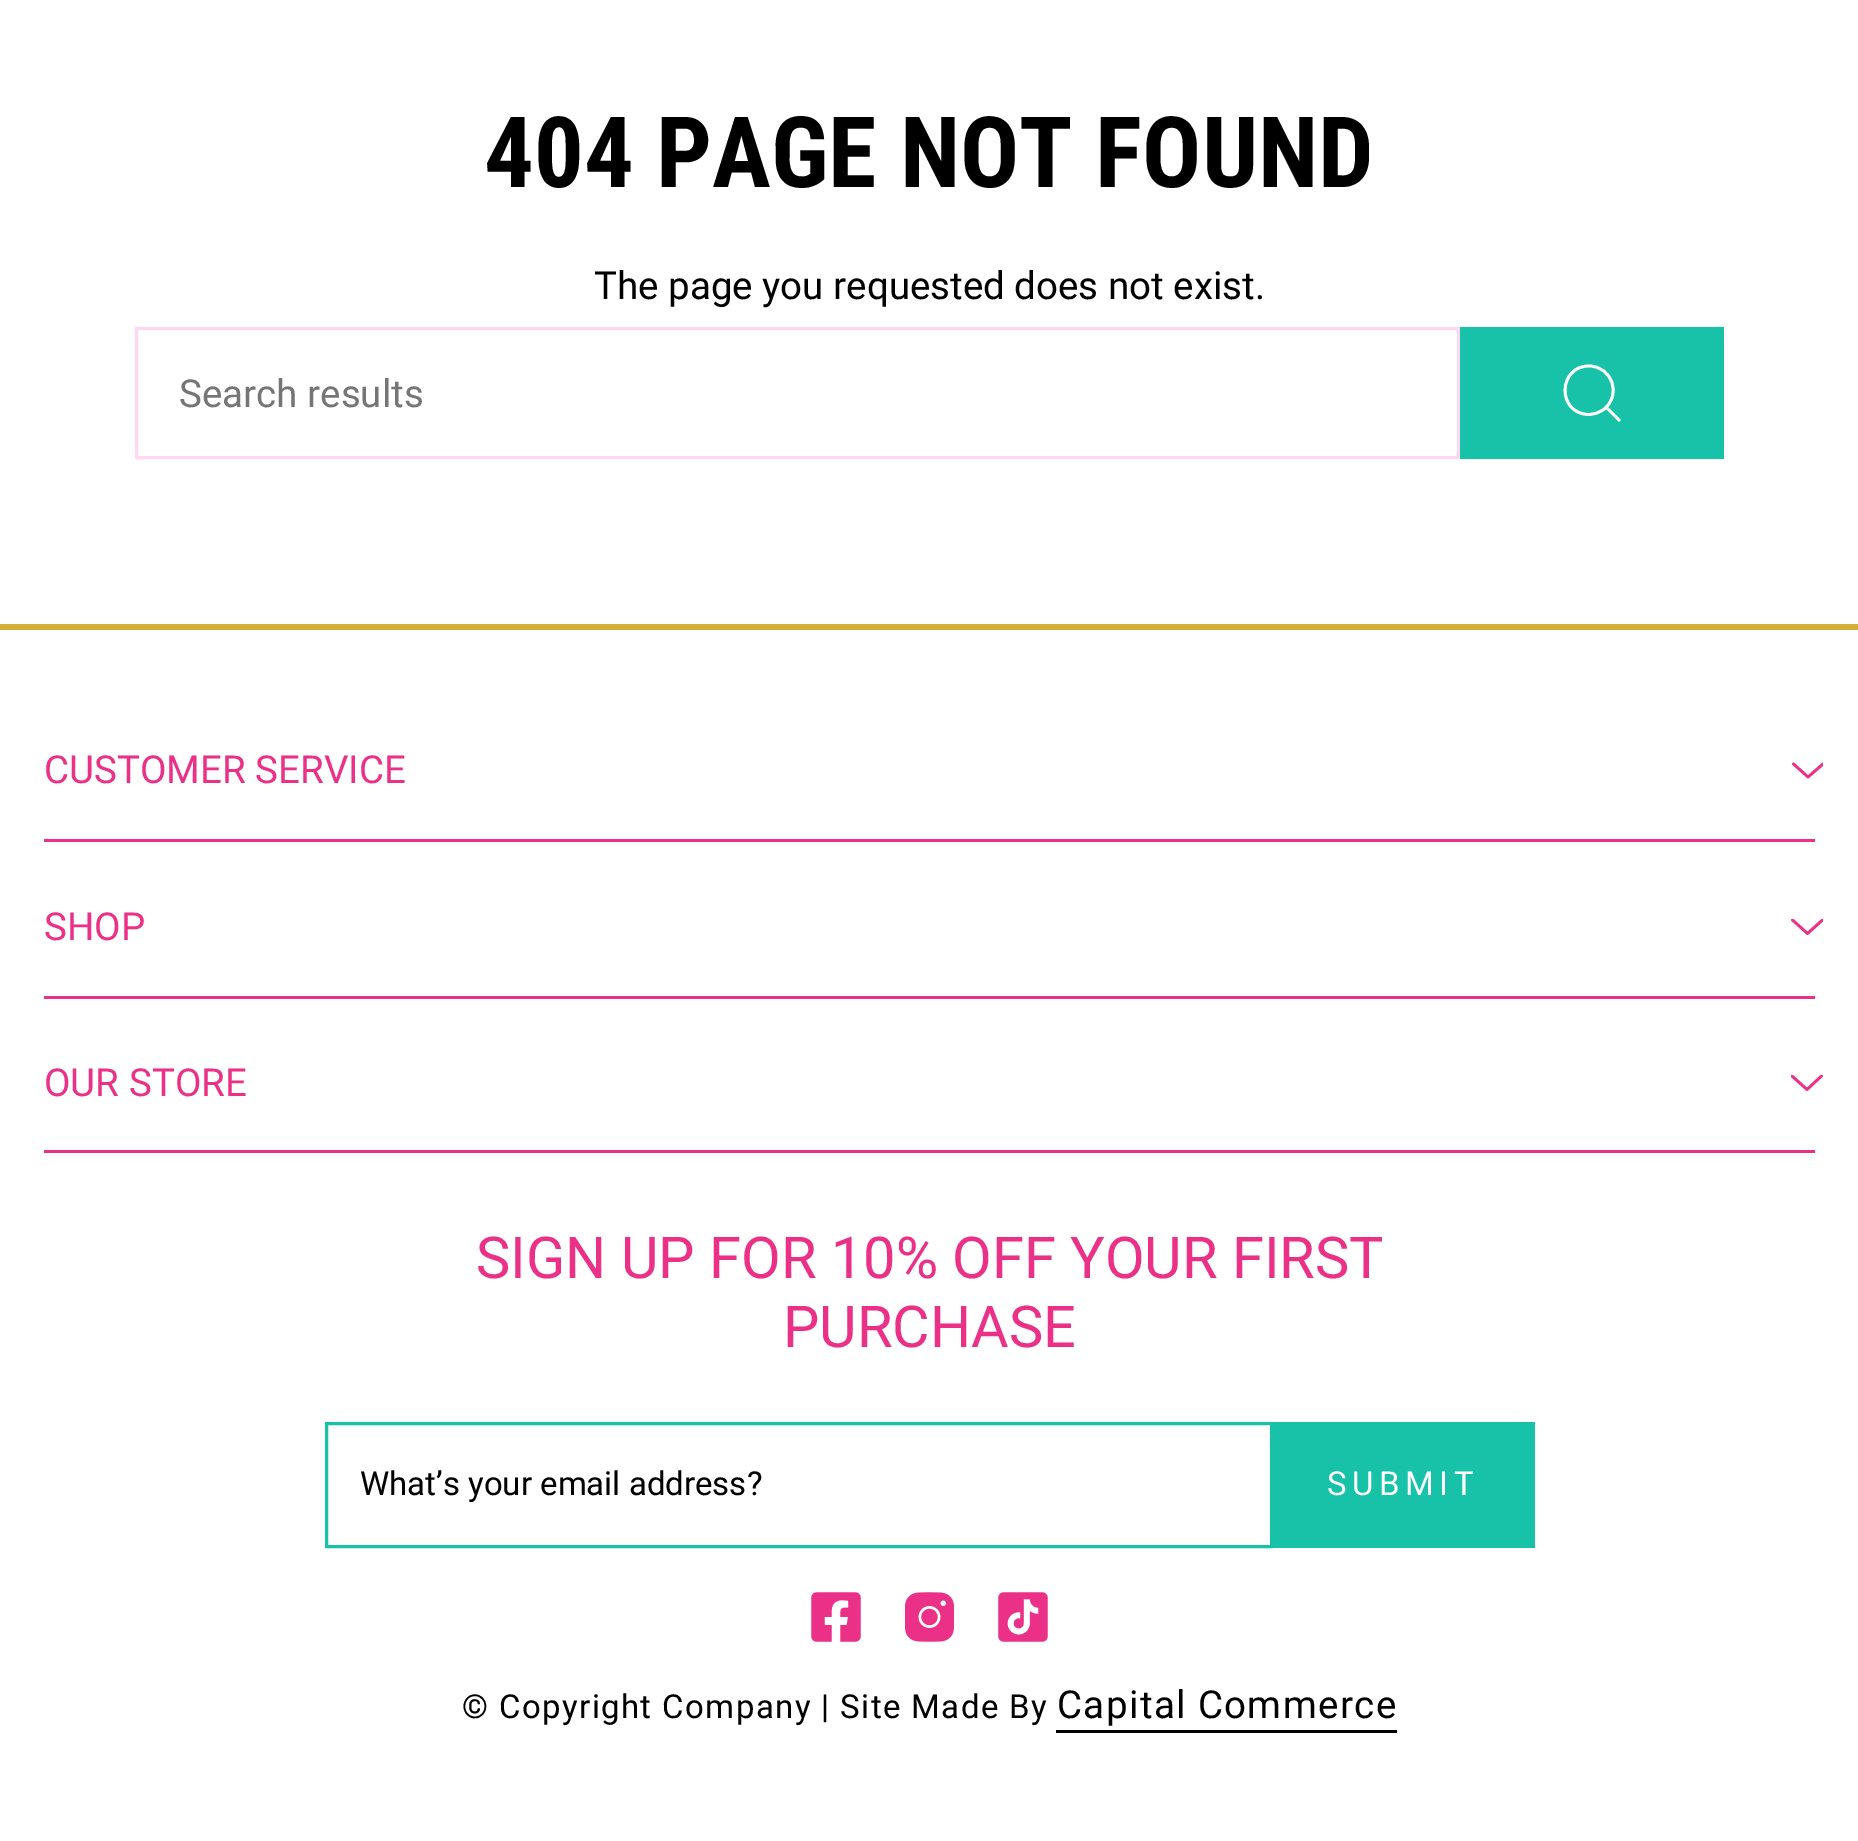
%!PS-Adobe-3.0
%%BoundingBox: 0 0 1858 1841
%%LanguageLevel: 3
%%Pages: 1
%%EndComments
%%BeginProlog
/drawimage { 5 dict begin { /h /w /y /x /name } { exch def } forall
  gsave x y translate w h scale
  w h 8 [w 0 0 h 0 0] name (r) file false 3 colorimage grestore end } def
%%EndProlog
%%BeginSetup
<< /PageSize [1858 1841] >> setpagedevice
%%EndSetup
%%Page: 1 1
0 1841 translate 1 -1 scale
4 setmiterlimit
1 setgray
0 0 1858 1841 rectfill
1 0.843 0.941 setrgbcolor
3 setlinewidth
136.5 328.5 1322 129 rectstroke
0.09 0.761 0.659 setrgbcolor
1460 327 264 132 rectfill
1 setgray
2.8 setlinewidth
newpath 1589 366 moveto 1612 366 1622.5 395.5 1603.5 409.5 curveto 1599 413 1593.5 414.5 1588 414.5 curveto 1556.5 413 1558 366 1589 366 curveto closepath 1606.5 407.5 moveto 1620 421 lineto stroke
0.831 0.686 0.216 setrgbcolor
0 624 1858 6 rectfill
gsave
newpath 1823 762.5 moveto 1823 779 lineto 1791 779 lineto 1791 762.5 lineto closepath clip newpath
0.918 0.188 0.529 setrgbcolor
2.7 setlinewidth
1 setlinecap
1 setlinejoin
newpath 1823 764 moveto 1808 777 lineto 1793.5 764 lineto stroke
grestore
0.918 0.188 0.529 setrgbcolor
44 839 1771 3 rectfill
gsave
newpath 1823 919 moveto 1823 935 lineto 1791 935 lineto 1791 919 lineto closepath clip newpath
2.7 setlinewidth
1 setlinecap
1 setlinejoin
newpath 1822.5 920 moveto 1807.5 933.5 lineto 1792.5 920 lineto stroke
grestore
44 996 1771 3 rectfill
gsave
newpath 1823 1075 moveto 1823 1091.5 lineto 1791 1091.5 lineto 1791 1075 lineto closepath clip newpath
2.7 setlinewidth
1 setlinecap
1 setlinejoin
newpath 1821.5 1076 moveto 1807 1089.5 lineto 1792 1076 lineto stroke
grestore
44 1150 1771 3 rectfill
0.09 0.761 0.659 setrgbcolor
3 setlinewidth
326.5 1423.5 945 123 rectstroke
1273 1422 262 126 rectfill
(images/1.raw) 811 1592 50 50 drawimage
(images/2.raw) 905 1592 49 50 drawimage
(images/3.raw) 998 1592 50 50 drawimage
0 setgray
1056 1730 341 3 rectfill
/RobotoCondensed-Bold [98.5 0 0 -98.5 0 0] selectfont
484 187 moveto (404 PAGE NOT FOUND) show
/Roboto-Regular [38.5 0 0 -38.5 0 0] selectfont
594 299 moveto (The page you requested does not exist.) show
0.459 setgray
179 407 moveto (Search results) show
0.918 0.188 0.529 setrgbcolor
44 783 moveto (CUSTOMER SERVICE) show
44 940 moveto (SHOP) show
44 1096 moveto (OUR STORE) show
/Roboto-Regular [57.75 0 0 -57.75 0 0] selectfont
476 1278 moveto (SIGN UP FOR 10% OFF YOUR FIRST) show
783 1347 moveto (PURCHASE) show
/Roboto-Regular [33 0 0 -33 0 0] selectfont
0 setgray
360 1495 moveto (What’s your email address?) show
1 setgray
1327 1495 moveto 5.5 0 (SUBMIT) ashow
0 setgray
462 1718 moveto 1.4 0 (© Copyright Company | Site Made By) ashow
/Roboto-Regular [38.5 0 0 -38.5 0 0] selectfont
1057 1718 moveto 1.4 0 (Capital Commerce) ashow
showpage
%%EOF
